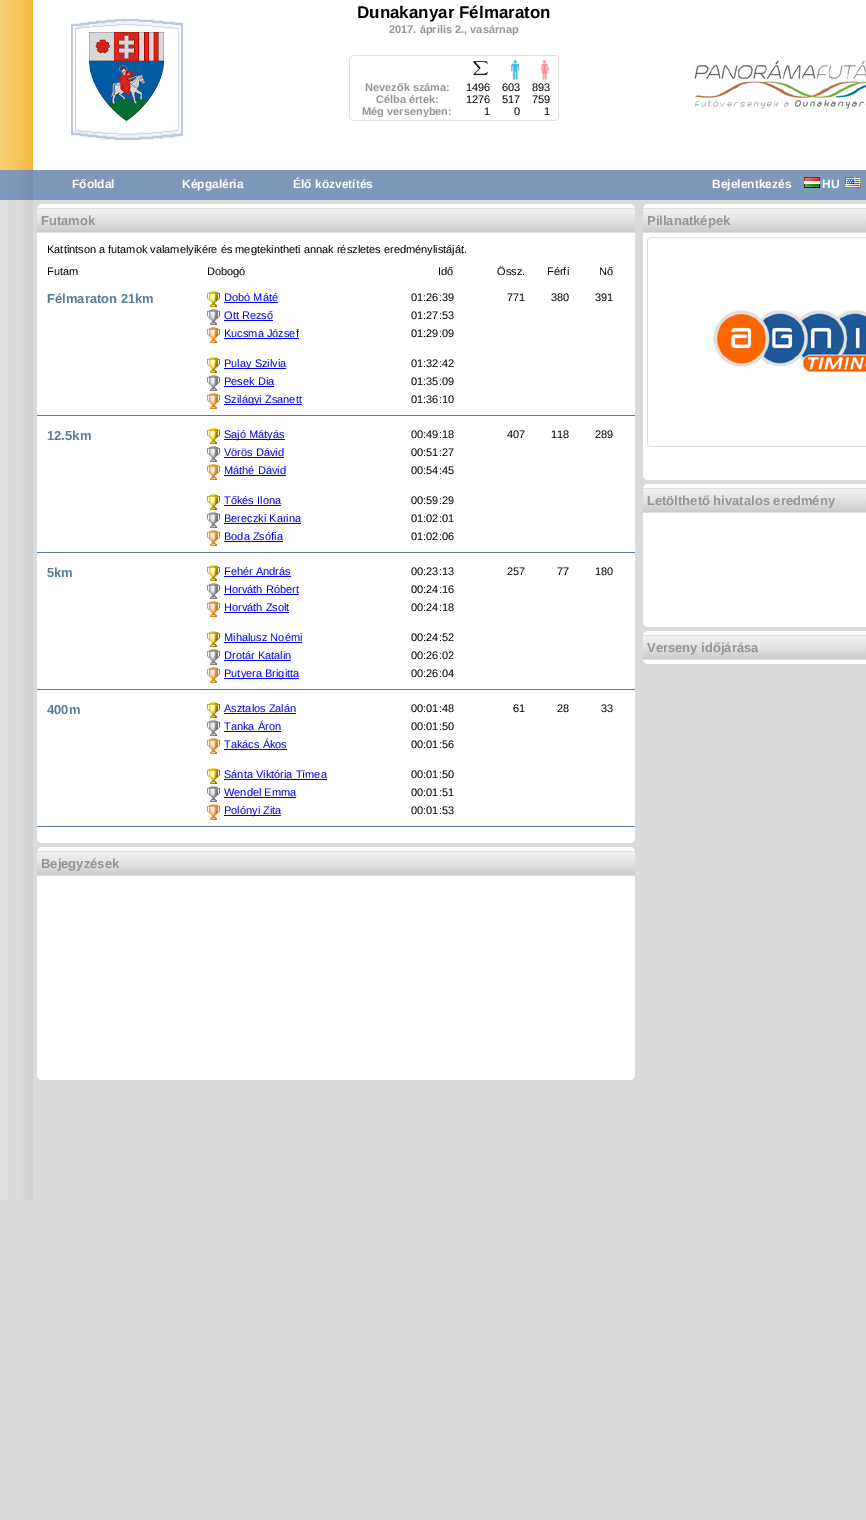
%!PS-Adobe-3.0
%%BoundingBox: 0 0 866 1520
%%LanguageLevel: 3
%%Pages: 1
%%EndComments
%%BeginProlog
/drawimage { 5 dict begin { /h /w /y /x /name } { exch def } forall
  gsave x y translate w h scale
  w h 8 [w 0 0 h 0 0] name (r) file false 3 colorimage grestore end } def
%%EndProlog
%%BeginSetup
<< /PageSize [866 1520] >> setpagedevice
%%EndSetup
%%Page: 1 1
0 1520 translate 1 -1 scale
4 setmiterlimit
0.855 setgray
0 0 866 1520 rectfill
(images/1.raw) 0 0 33 170 drawimage
1 setgray
33 0 833 170 rectfill
(images/2.raw) 71 19 112 121 drawimage
(images/3.raw) 85 29 91 96 drawimage
(images/4.raw) 353 55 206 4 drawimage
(images/5.raw) 349 55 4 4 drawimage
0.875 setgray
558 59 1 58 rectfill
349 59 1 58 rectfill
(images/6.raw) 472 61 16 15 drawimage
(images/7.raw) 511 60 8 20 drawimage
(images/8.raw) 540 60 10 20 drawimage
(images/10.raw) 349 117 4 4 drawimage
(images/11.raw) 693 60 173 53 drawimage
0.494 0.596 0.725 setrgbcolor
33 170 833 30 rectfill
(images/12.raw) 0 170 33 30 drawimage
(images/13.raw) 804 177 16 11 drawimage
(images/14.raw) 845 177 16 11 drawimage
(images/15.raw) 0 200 33 1000 drawimage
1 setgray
37 204 598 639 rectfill
(images/16.raw) 631 204 4 4 drawimage
(images/17.raw) 37 204 4 4 drawimage
(images/18.raw) 37 209 598 23 drawimage
0.875 setgray
37 208 598 1 rectfill
37 232 598 1 rectfill
0.361 0.475 0.588 setrgbcolor
37 415 598 1 rectfill
(images/19.raw) 207 291 13 16 drawimage
0 0 0.933 setrgbcolor
224 302 54 1 rectfill
(images/20.raw) 207 309 13 16 drawimage
224 320 49 1 rectfill
(images/21.raw) 207 327 13 16 drawimage
224 338 75 1 rectfill
(images/19.raw) 207 357 13 16 drawimage
224 368 62 1 rectfill
(images/20.raw) 207 375 13 16 drawimage
224 386 50 1 rectfill
(images/21.raw) 207 393 13 16 drawimage
224 404 78 1 rectfill
0.361 0.475 0.588 setrgbcolor
37 552 598 1 rectfill
(images/19.raw) 207 428 13 16 drawimage
0 0 0.933 setrgbcolor
224 439 61 1 rectfill
(images/20.raw) 207 446 13 16 drawimage
224 457 60 1 rectfill
(images/21.raw) 207 464 13 16 drawimage
224 475 62 1 rectfill
(images/19.raw) 207 494 13 16 drawimage
224 505 57 1 rectfill
(images/20.raw) 207 512 13 16 drawimage
224 523 77 1 rectfill
(images/21.raw) 207 530 13 16 drawimage
224 541 59 1 rectfill
0.361 0.475 0.588 setrgbcolor
37 689 598 1 rectfill
(images/19.raw) 207 565 13 16 drawimage
0 0 0.933 setrgbcolor
224 576 67 1 rectfill
(images/20.raw) 207 583 13 16 drawimage
224 594 75 1 rectfill
(images/21.raw) 207 601 13 16 drawimage
224 612 65 1 rectfill
(images/19.raw) 207 631 13 16 drawimage
224 642 78 1 rectfill
(images/20.raw) 207 649 13 16 drawimage
224 660 67 1 rectfill
(images/21.raw) 207 667 13 16 drawimage
224 678 75 1 rectfill
0.361 0.475 0.588 setrgbcolor
37 826 598 1 rectfill
(images/19.raw) 207 702 13 16 drawimage
0 0 0.933 setrgbcolor
224 713 72 1 rectfill
(images/20.raw) 207 720 13 16 drawimage
224 731 57 1 rectfill
(images/21.raw) 207 738 13 16 drawimage
224 749 63 1 rectfill
(images/19.raw) 207 768 13 16 drawimage
224 779 103 1 rectfill
(images/20.raw) 207 786 13 16 drawimage
224 797 72 1 rectfill
(images/21.raw) 207 804 13 16 drawimage
224 815 57 1 rectfill
(images/22.raw) 631 839 4 4 drawimage
(images/23.raw) 37 839 4 4 drawimage
1 setgray
37 847 598 233 rectfill
(images/16.raw) 631 847 4 4 drawimage
(images/17.raw) 37 847 4 4 drawimage
(images/18.raw) 37 852 598 23 drawimage
0.875 setgray
37 851 598 1 rectfill
37 875 598 1 rectfill
(images/22.raw) 631 1076 4 4 drawimage
(images/23.raw) 37 1076 4 4 drawimage
1 setgray
643 204 223 276 rectfill
(images/17.raw) 643 204 4 4 drawimage
(images/24.raw) 643 209 223 23 drawimage
0.875 setgray
643 208 223 1 rectfill
643 232 223 1 rectfill
647 237 219 1 rectfill
(images/5.raw) 647 237 4 4 drawimage
647 241 1 202 rectfill
(images/25.raw) 712 310 154 67 drawimage
647 446 219 1 rectfill
(images/10.raw) 647 443 4 4 drawimage
(images/23.raw) 643 476 4 4 drawimage
1 setgray
643 484 223 143 rectfill
(images/17.raw) 643 484 4 4 drawimage
(images/24.raw) 643 489 223 23 drawimage
0.875 setgray
643 488 223 1 rectfill
643 512 223 1 rectfill
(images/23.raw) 643 623 4 4 drawimage
1 setgray
647 631 219 33 rectfill
(images/17.raw) 643 631 4 4 drawimage
(images/24.raw) 643 636 223 23 drawimage
0.875 setgray
643 635 223 1 rectfill
643 659 223 1 rectfill
(images/23.raw) 643 660 4 4 drawimage
/LiberationSans-Bold [17 0 0 -17 0 0] selectfont
0 setgray
357 18 moveto (Dunakanyar Félmaraton) show
/LiberationSans-Bold [11 0 0 -11 0 0] selectfont
0.58 setgray
389 33 moveto (2017. április 2., vasárnap) show
365 91 moveto (Nevezők száma:) show
/LiberationSans-Regular [11 0 0 -11 0 0] selectfont
0 setgray
466 91 moveto (1496) show
502 91 moveto (603) show
532 91 moveto (893) show
/LiberationSans-Bold [11 0 0 -11 0 0] selectfont
0.58 setgray
376 103 moveto (Célba értek:) show
/LiberationSans-Regular [11 0 0 -11 0 0] selectfont
0 setgray
466 103 moveto (1276) show
502 103 moveto (517) show
532 103 moveto (759) show
/LiberationSans-Bold [11 0 0 -11 0 0] selectfont
0.58 setgray
362 115 moveto (Még versenyben:) show
/LiberationSans-Regular [11 0 0 -11 0 0] selectfont
0 setgray
484 115 moveto (1) show
514 115 moveto (0) show
544 115 moveto (1) show
(images/9.raw) 353 117 206 4 drawimage
/LiberationSans-Bold [12 0 0 -12 0 0] selectfont
1 setgray
72 188 moveto (Főoldal) show
182 188 moveto (Képgaléria) show
293 188 moveto (Élő közvetítés) show
712 188 moveto (Bejelentkezés) show
822 188 moveto (HU) show
/LiberationSans-Bold [13 0 0 -13 0 0] selectfont
0.58 setgray
41 225 moveto (Futamok) show
/LiberationSans-Regular [11 0 0 -11 0 0] selectfont
0 setgray
47 253 moveto (Kattintson a futamok valamelyikére és megtekintheti annak részletes eredménylistáját.) show
47 275 moveto (Futam) show
207 275 moveto (Dobogó) show
438 275 moveto (Idő) show
497 275 moveto (Össz.) show
547 275 moveto (Férfi) show
599 275 moveto (Nő) show
/LiberationSans-Bold [13 0 0 -13 0 0] selectfont
0.361 0.475 0.588 setrgbcolor
47 303 moveto (Félmaraton 21km) show
/LiberationSans-Regular [11 0 0 -11 0 0] selectfont
0 0 0.933 setrgbcolor
224 301 moveto (Dobó Máté) show
0 setgray
411 301 moveto (01:26:39) show
0 0 0.933 setrgbcolor
224 319 moveto (Ott Rezső) show
0 setgray
411 319 moveto (01:27:53) show
0 0 0.933 setrgbcolor
224 337 moveto (Kucsma József) show
0 setgray
411 337 moveto (01:29:09) show
0 0 0.933 setrgbcolor
224 367 moveto (Pulay Szilvia) show
0 setgray
411 367 moveto (01:32:42) show
0 0 0.933 setrgbcolor
224 385 moveto (Pesek Dia) show
0 setgray
411 385 moveto (01:35:09) show
0 0 0.933 setrgbcolor
224 403 moveto (Szilágyi Zsanett) show
0 setgray
411 403 moveto (01:36:10) show
507 301 moveto (771) show
551 301 moveto (380) show
595 301 moveto (391) show
/LiberationSans-Bold [13 0 0 -13 0 0] selectfont
0.361 0.475 0.588 setrgbcolor
47 440 moveto (12.5km) show
/LiberationSans-Regular [11 0 0 -11 0 0] selectfont
0 0 0.933 setrgbcolor
224 438 moveto (Sajó Mátyás) show
0 setgray
411 438 moveto (00:49:18) show
0 0 0.933 setrgbcolor
224 456 moveto (Vörös Dávid) show
0 setgray
411 456 moveto (00:51:27) show
0 0 0.933 setrgbcolor
224 474 moveto (Máthé Dávid) show
0 setgray
411 474 moveto (00:54:45) show
0 0 0.933 setrgbcolor
224 504 moveto (Tőkés Ilona) show
0 setgray
411 504 moveto (00:59:29) show
0 0 0.933 setrgbcolor
224 522 moveto (Bereczki Karina) show
0 setgray
411 522 moveto (01:02:01) show
0 0 0.933 setrgbcolor
224 540 moveto (Boda Zsófia) show
0 setgray
411 540 moveto (01:02:06) show
507 438 moveto (407) show
551 438 moveto (118) show
595 438 moveto (289) show
/LiberationSans-Bold [13 0 0 -13 0 0] selectfont
0.361 0.475 0.588 setrgbcolor
47 577 moveto (5km) show
/LiberationSans-Regular [11 0 0 -11 0 0] selectfont
0 0 0.933 setrgbcolor
224 575 moveto (Fehér András) show
0 setgray
411 575 moveto (00:23:13) show
0 0 0.933 setrgbcolor
224 593 moveto (Horváth Róbert) show
0 setgray
411 593 moveto (00:24:16) show
0 0 0.933 setrgbcolor
224 611 moveto (Horváth Zsolt) show
0 setgray
411 611 moveto (00:24:18) show
0 0 0.933 setrgbcolor
224 641 moveto (Mihalusz Noémi) show
0 setgray
411 641 moveto (00:24:52) show
0 0 0.933 setrgbcolor
224 659 moveto (Drotár Katalin) show
0 setgray
411 659 moveto (00:26:02) show
0 0 0.933 setrgbcolor
224 677 moveto (Putyera Brigitta) show
0 setgray
411 677 moveto (00:26:04) show
507 575 moveto (257) show
557 575 moveto (77) show
595 575 moveto (180) show
/LiberationSans-Bold [13 0 0 -13 0 0] selectfont
0.361 0.475 0.588 setrgbcolor
47 714 moveto (400m) show
/LiberationSans-Regular [11 0 0 -11 0 0] selectfont
0 0 0.933 setrgbcolor
224 712 moveto (Asztalos Zalán) show
0 setgray
411 712 moveto (00:01:48) show
0 0 0.933 setrgbcolor
224 730 moveto (Tanka Áron) show
0 setgray
411 730 moveto (00:01:50) show
0 0 0.933 setrgbcolor
224 748 moveto (Takács Ákos) show
0 setgray
411 748 moveto (00:01:56) show
0 0 0.933 setrgbcolor
224 778 moveto (Sánta Viktória Tímea) show
0 setgray
411 778 moveto (00:01:50) show
0 0 0.933 setrgbcolor
224 796 moveto (Wendel Emma) show
0 setgray
411 796 moveto (00:01:51) show
0 0 0.933 setrgbcolor
224 814 moveto (Polónyi Zita) show
0 setgray
411 814 moveto (00:01:53) show
513 712 moveto (61) show
557 712 moveto (28) show
601 712 moveto (33) show
/LiberationSans-Bold [13 0 0 -13 0 0] selectfont
0.58 setgray
41 868 moveto (Bejegyzések) show
647 225 moveto (Pillanatképek) show
647 505 moveto (Letölthető hivatalos eredmény) show
647 652 moveto (Verseny időjárása) show
showpage
%%EOF
